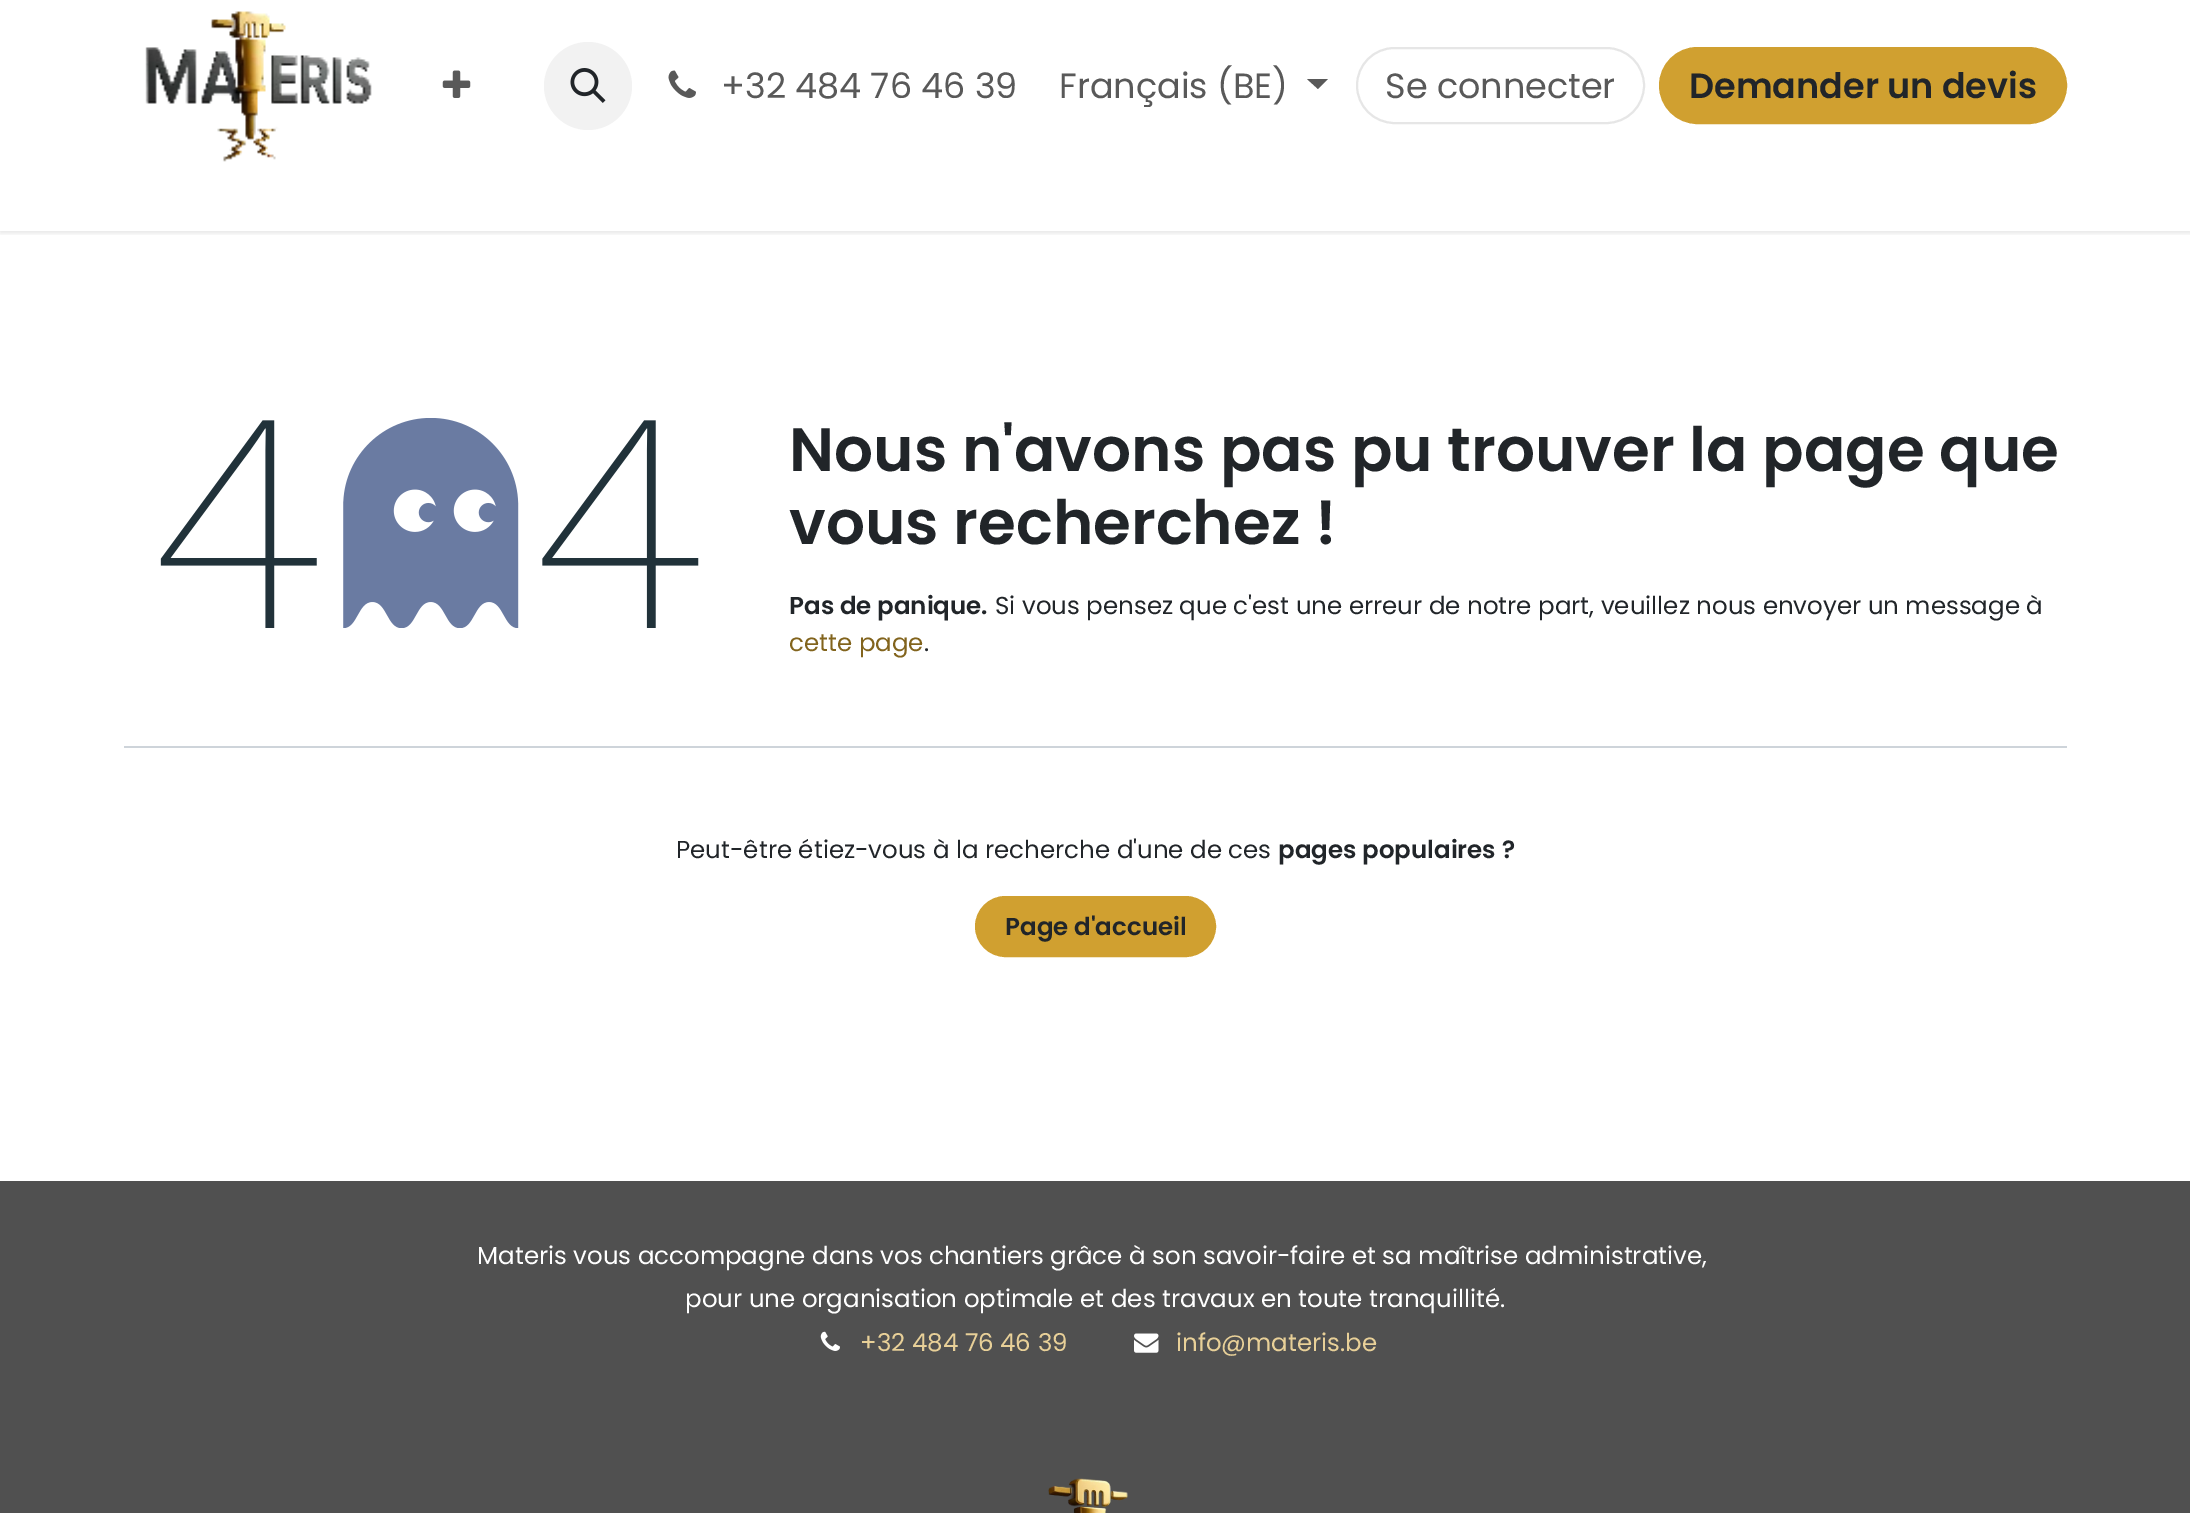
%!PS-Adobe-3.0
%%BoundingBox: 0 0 2190 1513
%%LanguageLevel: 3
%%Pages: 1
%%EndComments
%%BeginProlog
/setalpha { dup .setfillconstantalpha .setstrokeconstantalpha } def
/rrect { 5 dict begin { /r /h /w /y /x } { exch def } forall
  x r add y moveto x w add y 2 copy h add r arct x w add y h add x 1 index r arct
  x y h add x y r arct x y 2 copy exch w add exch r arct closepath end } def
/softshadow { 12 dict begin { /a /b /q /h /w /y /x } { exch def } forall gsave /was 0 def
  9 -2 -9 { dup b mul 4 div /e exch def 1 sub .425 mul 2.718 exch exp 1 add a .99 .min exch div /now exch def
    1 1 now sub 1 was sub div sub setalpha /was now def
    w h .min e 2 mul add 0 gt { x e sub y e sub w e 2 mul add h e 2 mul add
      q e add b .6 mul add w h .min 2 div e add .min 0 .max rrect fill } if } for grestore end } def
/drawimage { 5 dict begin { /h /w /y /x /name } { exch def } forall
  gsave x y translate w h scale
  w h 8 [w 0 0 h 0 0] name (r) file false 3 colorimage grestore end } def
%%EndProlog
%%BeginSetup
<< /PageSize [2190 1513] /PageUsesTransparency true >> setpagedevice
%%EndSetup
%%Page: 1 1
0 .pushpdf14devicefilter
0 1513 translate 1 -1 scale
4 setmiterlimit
1 setgray
0 0 2190 1513 rectfill
gsave
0 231 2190 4 rectclip
0 setgray
0 -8 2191 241 0 2.5 0.1 softshadow
grestore
(images/1.raw) 145 11 227 151 drawimage
(images/2.raw) 442 70 29 28 drawimage
0.949 setgray
newpath 588 86 44 0 360 arc closepath fill
(images/3.raw) 570 68 36 35 drawimage
(images/4.raw) 668 70 28 28 drawimage
0.349 setgray
newpath 1307 79 moveto 1328 79 lineto 1318 89 lineto closepath fill
0.902 setgray
2 setlinewidth
1357 48 287 75 37.5 rrect stroke
0.816 0.627 0.188 setrgbcolor
1660 48 406 75 37.5 rrect gsave fill grestore
stroke
(images/5.raw) 160 418 539 210 drawimage
0.808 0.831 0.855 setrgbcolor
124 746 1943 2 rectfill
0.816 0.627 0.188 setrgbcolor
976 897 239 59 29.5 rrect gsave fill grestore
stroke
0.314 setgray
0 1181 2190 332 rectfill
(images/6.raw) 820 1331 20 20 drawimage
(images/7.raw) 1134 1333 25 20 drawimage
(images/8.raw) 1048 1478 80 35 drawimage
/Poppins-Regular [35 0 0 -35 0 0] selectfont
0.349 setgray
721 98 moveto (+32 484 76 46 39) show
1059 98 moveto (Français \(BE\)) show
1385 98 moveto (Se connecter) show
/Poppins-SemiBold [35 0 0 -35 0 0] selectfont
0.129 0.145 0.161 setrgbcolor
1689 98 moveto (Demander un devis) show
/Poppins-SemiBold [61.25 0 0 -61.25 0 0] selectfont
789 471 moveto (Nous n'avons pas pu trouver la page que) show
789 544 moveto (vous recherchez !) show
/Poppins-SemiBold [24.5 0 0 -24.5 0 0] selectfont
789 614 moveto (Pas de panique.) show
/Poppins-Regular [24.5 0 0 -24.5 0 0] selectfont
995 614 moveto (Si vous pensez que c'est une erreur de notre part, veuillez nous envoyer un message à) show
0.51 0.392 0.114 setrgbcolor
789 651 moveto (cette page) show
0.129 0.145 0.161 setrgbcolor
924 651 moveto (.) show
676 858 moveto (Peut-être étiez-vous à la recherche d'une de ces) show
/Poppins-SemiBold [24.5 0 0 -24.5 0 0] selectfont
1278 858 moveto (pages populaires ?) show
1005 935 moveto (Page d'accueil) show
/Poppins-Regular [24.5 0 0 -24.5 0 0] selectfont
1 setgray
477 1264 moveto (Materis vous accompagne dans vos chantiers grâce à son savoir-faire et sa maîtrise administrative,) show
685 1307 moveto (pour une organisation optimale et des travaux en toute tranquillité.) show
0.91 0.816 0.596 setrgbcolor
860 1351 moveto (+32 484 76 46 39) show
1176 1351 moveto (info@materis.be) show
.poppdf14devicefilter showpage
%%EOF
